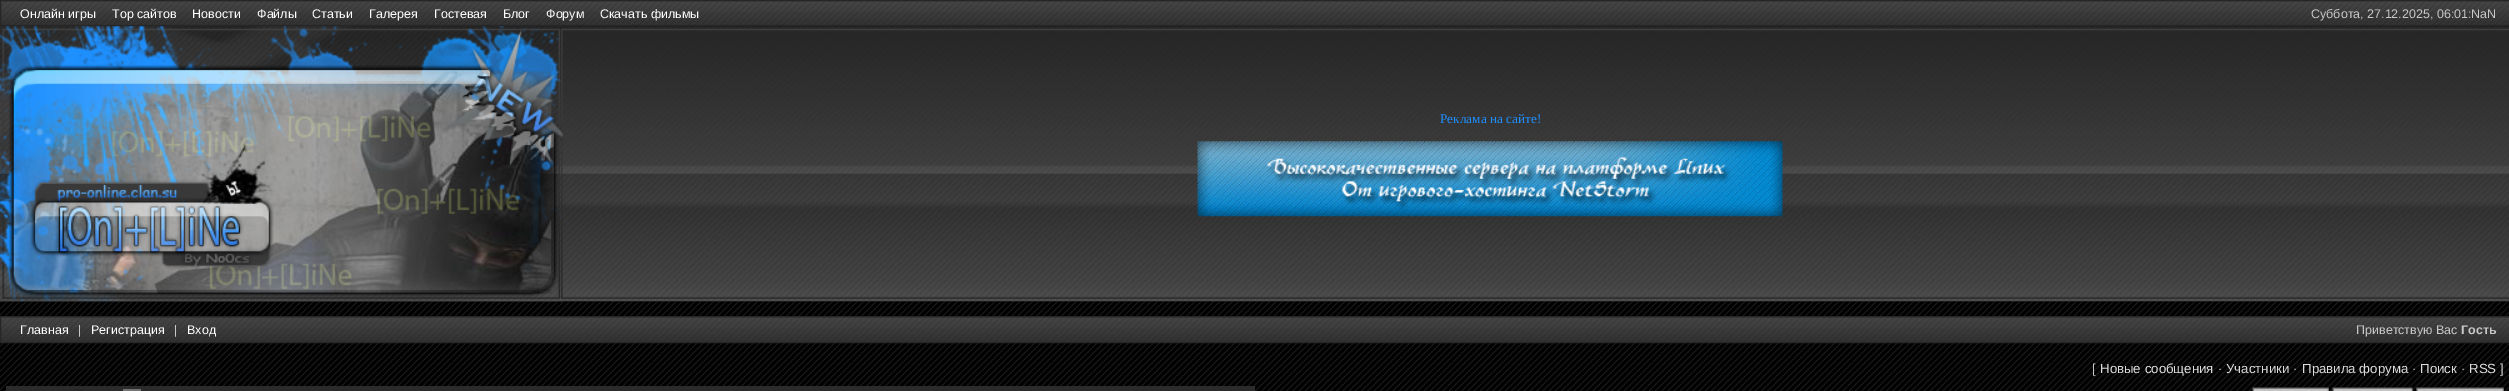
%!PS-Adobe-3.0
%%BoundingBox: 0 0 2509 391
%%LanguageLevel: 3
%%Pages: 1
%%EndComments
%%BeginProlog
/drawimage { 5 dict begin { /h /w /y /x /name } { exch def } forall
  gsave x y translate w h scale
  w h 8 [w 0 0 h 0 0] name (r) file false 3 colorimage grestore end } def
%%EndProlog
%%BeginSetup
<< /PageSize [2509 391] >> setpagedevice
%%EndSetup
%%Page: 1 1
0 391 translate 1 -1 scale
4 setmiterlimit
1 setgray
0 0 2509 391 rectfill
(images/1.raw) 0 26 2509 365 drawimage
(images/2.raw) 0 1 2509 26 drawimage
0.149 setgray
0.5 0.5 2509 25 rectstroke
(images/3.raw) 0 26 2509 276 drawimage
(images/4.raw) 0 26 563 276 drawimage
(images/5.raw) 1197 141 586 76 drawimage
(images/6.raw) 1 317 2508 25 drawimage
0.5 316.5 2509 26 rectstroke
0.169 setgray
6 386 1249 5 rectfill
0.157 setgray
3 setlinewidth
74.5 390.5 8 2 rectstroke
0.455 setgray
123 389 18 2 rectfill
(images/7.raw) 2252 387 77 4 drawimage
(images/8.raw) 2332 387 81 4 drawimage
(images/9.raw) 2416 387 88 4 drawimage
/LiberationSans-Regular [12.5 0 0 -12.5 0 0] selectfont
1 setgray
20 18 moveto (Онлайн игры) show
112 18 moveto (Тор сайтов) show
192 18 moveto (Новости) show
257 18 moveto (Файлы) show
312 18 moveto (Статьи) show
369 18 moveto (Галерея) show
434 18 moveto (Гостевая) show
503 18 moveto (Блог) show
546 18 moveto (Форум) show
600 18 moveto (Скачать фильмы) show
0.784 setgray
2311 18 moveto (Суббота, 27.12.2025, 06:01:NaN) show
/LiberationSerif-Regular [13.25 0 0 -13.25 0 0] selectfont
0.118 0.565 1 setrgbcolor
1440 123 moveto (Реклама на сайте!) show
/LiberationSans-Regular [12.5 0 0 -12.5 0 0] selectfont
1 setgray
20 334 moveto (Главная) show
0.784 setgray
78 334 moveto (|) show
1 setgray
91 334 moveto (Регистрация) show
0.784 setgray
174 334 moveto (|) show
1 setgray
187 334 moveto (Вход) show
0.784 setgray
2356 334 moveto (Приветствую Вас) show
/LiberationSans-Bold [12.5 0 0 -12.5 0 0] selectfont
2461 334 moveto (Гость) show
/LiberationSans-Regular [13.25 0 0 -13.25 0 0] selectfont
2092 373 moveto ([) show
0.871 setgray
2100 373 moveto (Новые сообщения) show
0.784 setgray
2218 373 moveto (·) show
0.871 setgray
2226 373 moveto (Участники) show
0.784 setgray
2293 373 moveto (·) show
0.871 setgray
2302 373 moveto (Правила форума) show
0.784 setgray
2412 373 moveto (·) show
0.871 setgray
2420 373 moveto (Поиск) show
0.784 setgray
2461 373 moveto (·) show
0.871 setgray
2469 373 moveto (RSS) show
0.784 setgray
2500 373 moveto (]) show
showpage
%%EOF
